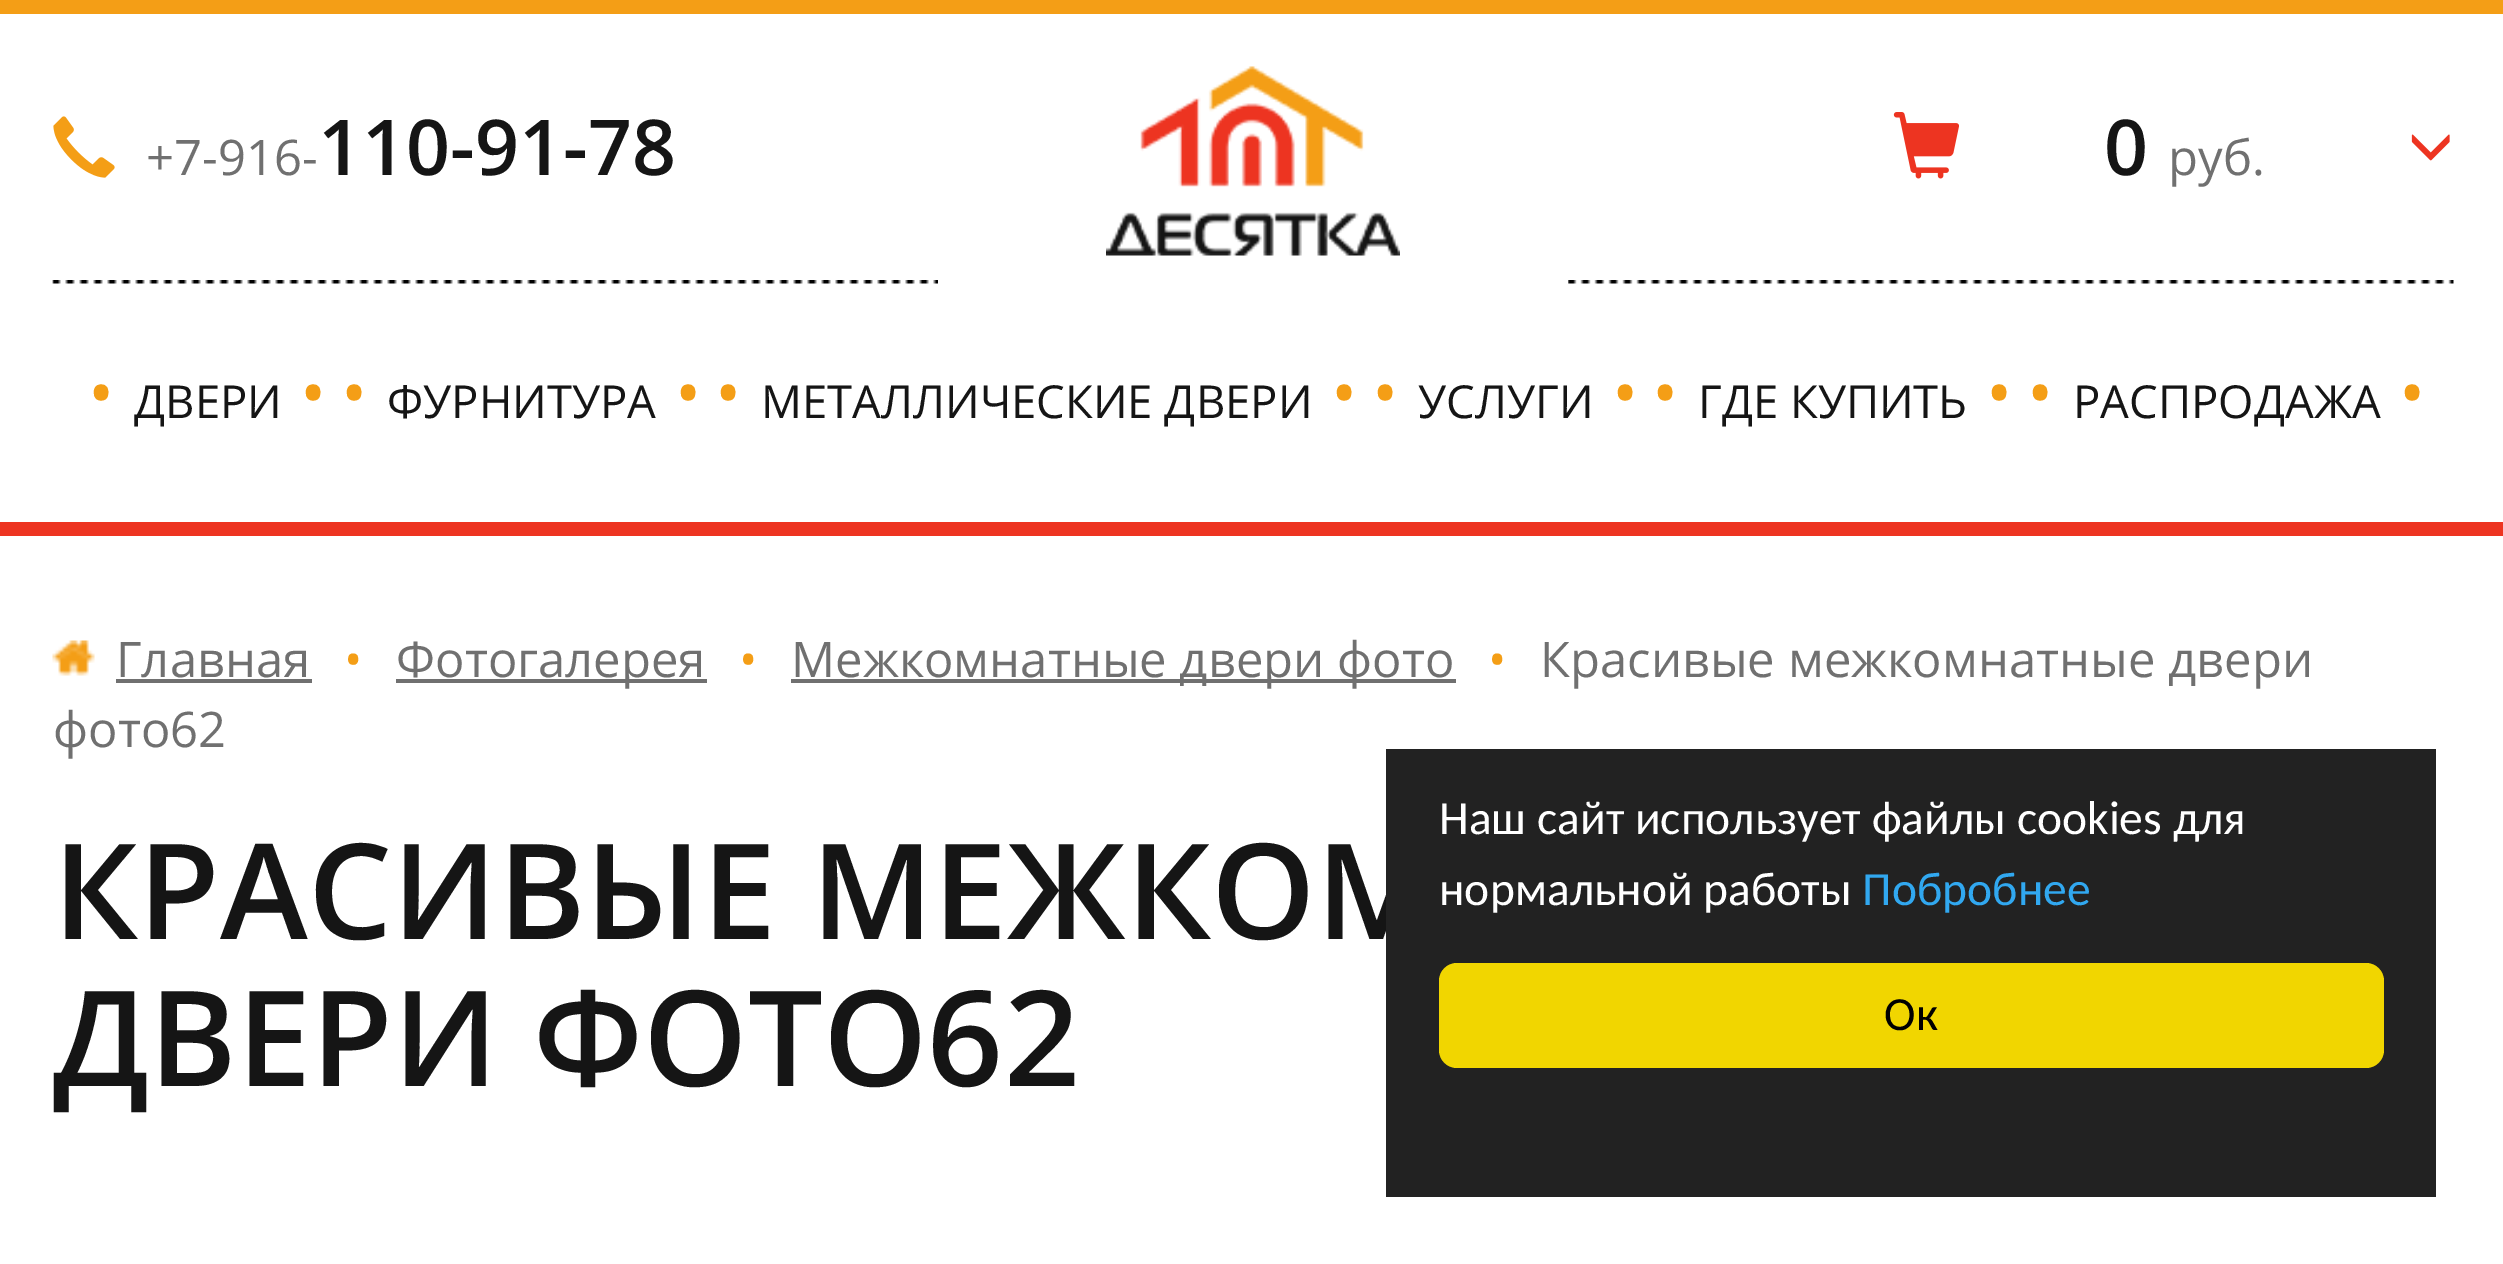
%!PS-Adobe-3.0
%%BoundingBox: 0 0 2503 1264
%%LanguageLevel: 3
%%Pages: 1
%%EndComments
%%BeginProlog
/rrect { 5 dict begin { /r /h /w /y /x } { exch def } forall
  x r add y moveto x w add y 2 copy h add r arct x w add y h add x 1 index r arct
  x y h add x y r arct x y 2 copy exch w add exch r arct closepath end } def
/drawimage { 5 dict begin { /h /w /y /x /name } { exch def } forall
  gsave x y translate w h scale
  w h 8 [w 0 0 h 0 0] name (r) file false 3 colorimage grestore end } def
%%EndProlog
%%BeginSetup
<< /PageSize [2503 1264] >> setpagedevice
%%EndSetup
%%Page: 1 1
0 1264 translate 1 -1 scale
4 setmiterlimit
1 setgray
0 0 2503 1264 rectfill
0.957 0.62 0.086 setrgbcolor
0 0 2503 14 rectfill
0.929 0.204 0.129 setrgbcolor
0 522 2503 14 rectfill
(images/1.raw) 53 116 62 62 drawimage
(images/2.raw) 52 280 886 4 drawimage
(images/3.raw) 1106 66 294 190 drawimage
(images/4.raw) 1893 112 66 67 drawimage
(images/5.raw) 2411 134 39 27 drawimage
(images/6.raw) 1568 280 886 4 drawimage
(images/7.raw) 52 640 43 36 drawimage
0.439 setgray
116 679 196 4 rectfill
396 679 311 4 rectfill
791 679 665 4 rectfill
/OpenSans-Regular [49 0 0 -49 0 0] selectfont
146 175 moveto (+7-916-) show
/OpenSans-SemiBold [77 0 0 -77 0 0] selectfont
0.082 setgray
318 175 moveto (110-91-78) show
2104 175 moveto (0) show
/OpenSans-Regular [49 0 0 -49 0 0] selectfont
0.439 setgray
2168 175 moveto (руб.) show
/OpenSans-Regular [70 0 0 -70 0 0] selectfont
0.957 0.62 0.086 setrgbcolor
88 418 moveto (•) show
/OpenSans-Regular [45.5 0 0 -45.5 0 0] selectfont
0.082 setgray
134 418 moveto (ДВЕРИ) show
/OpenSans-Regular [70 0 0 -70 0 0] selectfont
0.957 0.62 0.086 setrgbcolor
300 418 moveto (•) show
341 418 moveto (•) show
/OpenSans-Regular [45.5 0 0 -45.5 0 0] selectfont
0.082 setgray
387 418 moveto (ФУРНИТУРА) show
/OpenSans-Regular [70 0 0 -70 0 0] selectfont
0.957 0.62 0.086 setrgbcolor
675 418 moveto (•) show
715 418 moveto (•) show
/OpenSans-Regular [45.5 0 0 -45.5 0 0] selectfont
0.082 setgray
761 418 moveto (МЕТАЛЛИЧЕСКИЕ ДВЕРИ) show
/OpenSans-Regular [70 0 0 -70 0 0] selectfont
0.957 0.62 0.086 setrgbcolor
1331 418 moveto (•) show
1372 418 moveto (•) show
/OpenSans-Regular [45.5 0 0 -45.5 0 0] selectfont
0.082 setgray
1418 418 moveto (УСЛУГИ) show
/OpenSans-Regular [70 0 0 -70 0 0] selectfont
0.957 0.62 0.086 setrgbcolor
1612 418 moveto (•) show
1652 418 moveto (•) show
/OpenSans-Regular [45.5 0 0 -45.5 0 0] selectfont
0.082 setgray
1698 418 moveto (ГДЕ КУПИТЬ) show
/OpenSans-Regular [70 0 0 -70 0 0] selectfont
0.957 0.62 0.086 setrgbcolor
1986 418 moveto (•) show
2027 418 moveto (•) show
/OpenSans-Regular [45.5 0 0 -45.5 0 0] selectfont
0.082 setgray
2073 418 moveto (РАСПРОДАЖА) show
/OpenSans-Regular [70 0 0 -70 0 0] selectfont
0.957 0.62 0.086 setrgbcolor
2399 418 moveto (•) show
/OpenSans-Regular [49 0 0 -49 0 0] selectfont
0.439 setgray
116 677 moveto (Главная) show
0.957 0.62 0.086 setrgbcolor
344 677 moveto (•) show
0.439 setgray
396 677 moveto (Фотогалерея) show
0.957 0.62 0.086 setrgbcolor
739 677 moveto (•) show
0.439 setgray
791 677 moveto (Межкомнатные двери фото) show
0.957 0.62 0.086 setrgbcolor
1488 677 moveto (•) show
0.439 setgray
1540 677 moveto (Красивые межкомнатные двери) show
53 747 moveto (фото62) show
/OpenSans-SemiBold [133 0 0 -133 0 0] selectfont
0.082 setgray
53 939 moveto (КРАСИВЫЕ МЕЖКОМ) show
53 1086 moveto (ДВЕРИ ФОТО62) show
0.133 setgray
1386 749 1050 448 rectfill
/Carlito-Regular [47.6 0 0 -47.6 0 0] selectfont
1 setgray
1439 834 moveto (Наш сайт использует файлы cookies для) show
1439 905 moveto (нормальной работы) show
0.192 0.659 0.941 setrgbcolor
1862 905 moveto (Побробнее) show
0.945 0.839 0 setrgbcolor
1439 963 945 105 18 rrect fill
0 setgray
1884 1030 moveto (Ок) show
showpage
%%EOF
